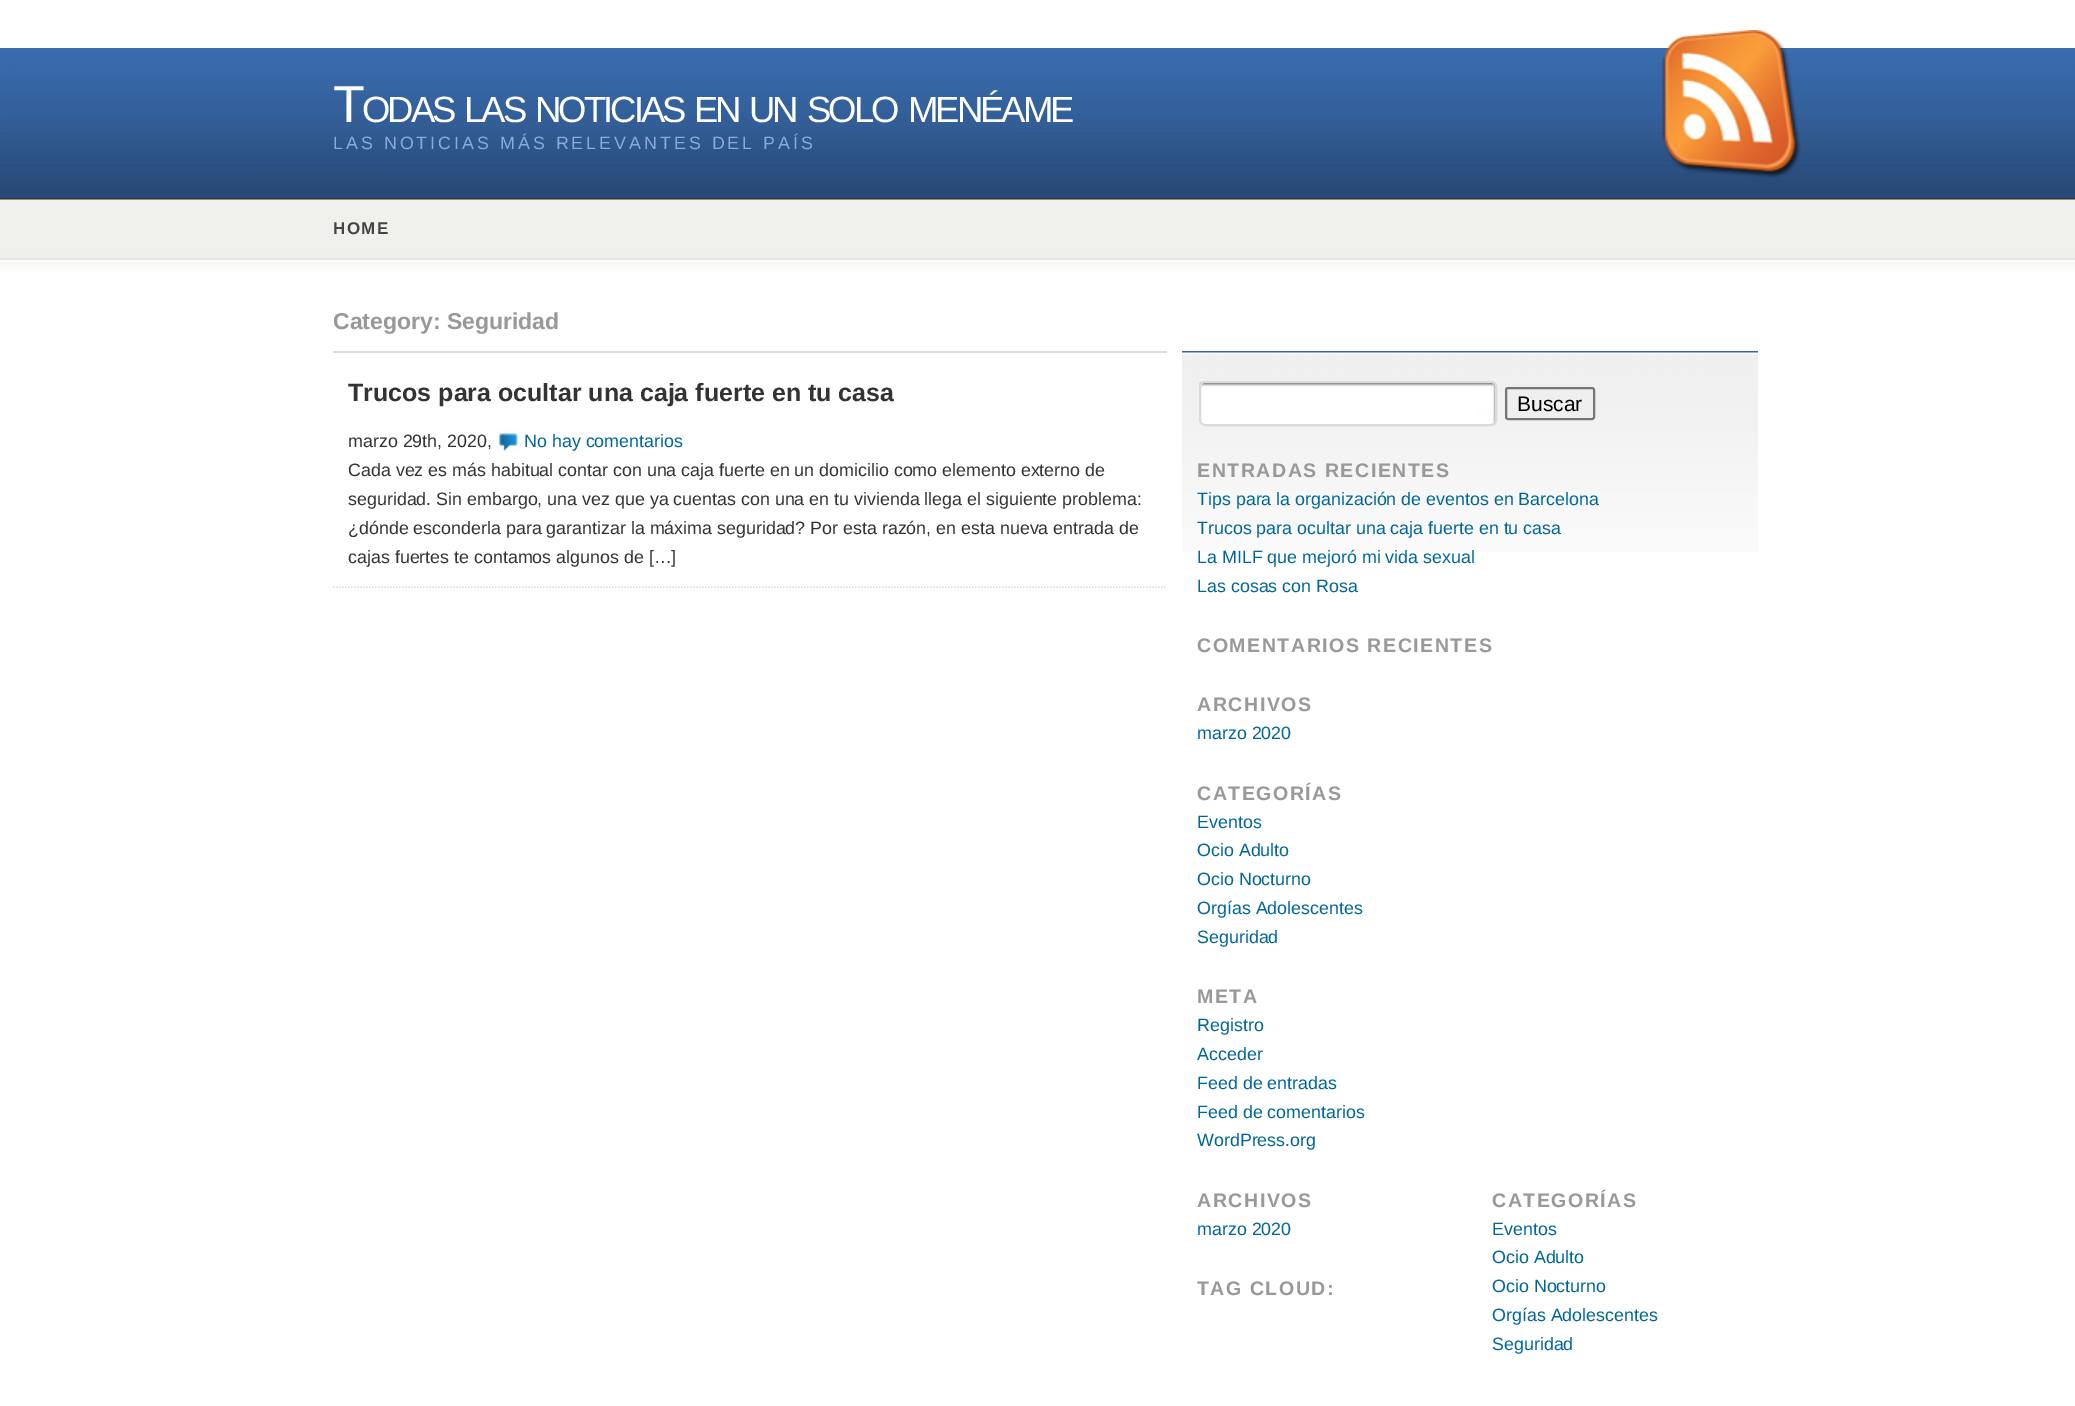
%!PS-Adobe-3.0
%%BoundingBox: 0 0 2075 1406
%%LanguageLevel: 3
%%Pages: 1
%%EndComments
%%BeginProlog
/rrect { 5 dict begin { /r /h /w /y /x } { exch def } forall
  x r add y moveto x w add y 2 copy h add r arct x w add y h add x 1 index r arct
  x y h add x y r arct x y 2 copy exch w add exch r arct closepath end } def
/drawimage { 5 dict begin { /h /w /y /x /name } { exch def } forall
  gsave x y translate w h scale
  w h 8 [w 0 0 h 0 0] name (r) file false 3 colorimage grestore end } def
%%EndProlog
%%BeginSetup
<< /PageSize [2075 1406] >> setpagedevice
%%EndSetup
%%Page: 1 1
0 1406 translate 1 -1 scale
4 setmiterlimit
1 setgray
0 0 2075 1406 rectfill
(images/1.raw) 0 48 2075 150 drawimage
0.2 setgray
0 198 2075 2 rectfill
(images/2.raw) 1662 30 139 148 drawimage
(images/3.raw) 0 199 2075 74 drawimage
0.867 setgray
333 351 834 2 rectfill
1.5 setlinewidth
[1.5 1.5] 0 setdash
newpath 333 587 moveto 1167 587 lineto stroke
(images/4.raw) 496 430 25 22 drawimage
(images/5.raw) 1182 351 576 201 drawimage
(images/6.raw) 1199 382 297 44 drawimage
0.855 setgray
2 setlinewidth
[] 0 setdash
1200 382 296 43 5 rrect stroke
0.937 setgray
1506 388 88 31 2 rrect gsave fill grestore
0.463 setgray
stroke
/LiberationSans-Regular [52 0 0 -52 0 0] selectfont
1 setgray
333 122 moveto -3 0 (T) ashow
/LiberationSans-Regular [36.5 0 0 -36.5 0 0] selectfont
362 122 moveto -3 0 (ODAS) ashow
464 122 moveto -3 0 (LAS) ashow
535 122 moveto -3 0 (NOTICIAS) ashow
694 122 moveto -3 0 (EN) ashow
749 122 moveto -3 0 (UN) ashow
807 122 moveto -3 0 (SOLO) ashow
908 122 moveto -3 0 (MENÉAME) ashow
/LiberationSans-Regular [17.85 0 0 -17.85 0 0] selectfont
0.525 0.675 0.859 setrgbcolor
333 149 moveto 3 0 (LAS NOTICIAS MÁS RELEVANTES DEL PAÍS) ashow
/LiberationSans-Bold [17 0 0 -17 0 0] selectfont
0.267 setgray
333 234 moveto 1.5 0 (HOME) ashow
/LiberationSans-Bold [23 0 0 -23 0 0] selectfont
0.6 setgray
333 329 moveto (Category: Seguridad) show
/LiberationSans-Bold [25 0 0 -25 0 0] selectfont
0.2 setgray
348 401 moveto (Trucos para ocultar una caja fuerte en tu casa) show
/LiberationSans-Regular [17.85 0 0 -17.85 0 0] selectfont
348 447 moveto (marzo 29th, 2020,) show
0 0.4 0.6 setrgbcolor
524 447 moveto (No hay comentarios) show
0.2 setgray
348 476 moveto (Cada vez es más habitual contar con una caja fuerte en un domicilio como elemento externo de) show
348 505 moveto (seguridad. Sin embargo, una vez que ya cuentas con una en tu vivienda llega el siguiente problema:) show
348 534 moveto (¿dónde esconderla para garantizar la máxima seguridad? Por esta razón, en esta nueva entrada de) show
348 563 moveto (cajas fuertes te contamos algunos de […]) show
/LiberationSans-Regular [21 0 0 -21 0 0] selectfont
0 setgray
1517 411 moveto (Buscar) show
/LiberationSans-Bold [19.6 0 0 -19.6 0 0] selectfont
0.6 setgray
1197 477 moveto 1.5 0 (ENTRADAS RECIENTES) ashow
/LiberationSans-Regular [17.85 0 0 -17.85 0 0] selectfont
0 0.4 0.6 setrgbcolor
1197 505 moveto (Tips para la organización de eventos en Barcelona) show
1197 534 moveto (Trucos para ocultar una caja fuerte en tu casa) show
1197 563 moveto (La MILF que mejoró mi vida sexual) show
1197 592 moveto (Las cosas con Rosa) show
/LiberationSans-Bold [19.6 0 0 -19.6 0 0] selectfont
0.6 setgray
1197 652 moveto 1.5 0 (COMENTARIOS RECIENTES) ashow
1197 711 moveto 1.5 0 (ARCHIVOS) ashow
/LiberationSans-Regular [17.85 0 0 -17.85 0 0] selectfont
0 0.4 0.6 setrgbcolor
1197 739 moveto (marzo 2020) show
/LiberationSans-Bold [19.6 0 0 -19.6 0 0] selectfont
0.6 setgray
1197 800 moveto 1.5 0 (CATEGORÍAS) ashow
/LiberationSans-Regular [17.85 0 0 -17.85 0 0] selectfont
0 0.4 0.6 setrgbcolor
1197 828 moveto (Eventos) show
1197 856 moveto (Ocio Adulto) show
1197 885 moveto (Ocio Nocturno) show
1197 914 moveto (Orgías Adolescentes) show
1197 943 moveto (Seguridad) show
/LiberationSans-Bold [19.6 0 0 -19.6 0 0] selectfont
0.6 setgray
1197 1003 moveto 1.5 0 (META) ashow
/LiberationSans-Regular [17.85 0 0 -17.85 0 0] selectfont
0 0.4 0.6 setrgbcolor
1197 1031 moveto (Registro) show
1197 1060 moveto (Acceder) show
1197 1089 moveto (Feed de entradas) show
1197 1118 moveto (Feed de comentarios) show
1197 1146 moveto (WordPress.org) show
/LiberationSans-Bold [19.6 0 0 -19.6 0 0] selectfont
0.6 setgray
1197 1207 moveto 1.5 0 (ARCHIVOS) ashow
/LiberationSans-Regular [17.85 0 0 -17.85 0 0] selectfont
0 0.4 0.6 setrgbcolor
1197 1235 moveto (marzo 2020) show
/LiberationSans-Bold [19.6 0 0 -19.6 0 0] selectfont
0.6 setgray
1197 1295 moveto 1.5 0 (TAG CLOUD:) ashow
1492 1207 moveto 1.5 0 (CATEGORÍAS) ashow
/LiberationSans-Regular [17.85 0 0 -17.85 0 0] selectfont
0 0.4 0.6 setrgbcolor
1492 1235 moveto (Eventos) show
1492 1263 moveto (Ocio Adulto) show
1492 1292 moveto (Ocio Nocturno) show
1492 1321 moveto (Orgías Adolescentes) show
1492 1350 moveto (Seguridad) show
showpage
%%EOF
